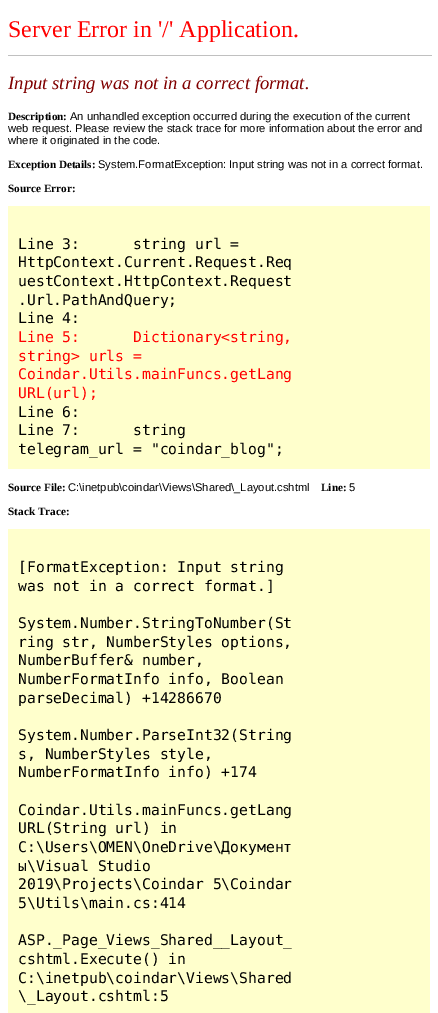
%!PS-Adobe-3.0
%%BoundingBox: 0 0 438 1013
%%LanguageLevel: 3
%%Pages: 1
%%EndComments
%%BeginProlog
%%EndProlog
%%BeginSetup
<< /PageSize [438 1013] >> setpagedevice
%%EndSetup
%%Page: 1 1
0 1013 translate 1 -1 scale
4 setmiterlimit
1 setgray
0 0 438 1013 rectfill
0.753 setgray
8 55 424 1 rectfill
1 1 0.8 setrgbcolor
8 206 422 263 rectfill
8 529 422 484 rectfill
/LiberationSerif-Regular [24 0 0 -24 0 0] selectfont
1 0 0 setrgbcolor
8 37 moveto (Server Error in '/' Application.) show
/LiberationSerif-Italic [18.7 0 0 -18.7 0 0] selectfont
0.502 0 0 setrgbcolor
8 89 moveto (Input string was not in a correct format.) show
/LiberationSerif-Bold [11.2 0 0 -11.2 0 0] selectfont
0 setgray
8 120 moveto (Description:) show
/LiberationSans-Regular [11.2 0 0 -11.2 0 0] selectfont
70 120 moveto (An unhandled exception occurred during the execution of the current) show
8 132 moveto (web request. Please review the stack trace for more information about the error and) show
8 144 moveto (where it originated in the code.) show
/LiberationSerif-Bold [11.2 0 0 -11.2 0 0] selectfont
8 168 moveto (Exception Details:) show
/LiberationSans-Regular [11.2 0 0 -11.2 0 0] selectfont
98 168 moveto (System.FormatException: Input string was not in a correct format.) show
/LiberationSerif-Bold [11.2 0 0 -11.2 0 0] selectfont
8 192 moveto (Source Error:) show
/DejaVuSansMono-Regular [14.7 0 0 -14.7 0 0] selectfont
18 249 moveto (Line 3:      string url =) show
18 267 moveto (HttpContext.Current.Request.Req) show
18 286 moveto (uestContext.HttpContext.Request) show
18 305 moveto (.Url.PathAndQuery;) show
18 323 moveto (Line 4:) show
1 0 0 setrgbcolor
18 342 moveto (Line 5:      Dictionary<string,) show
18 361 moveto (string> urls =) show
18 379 moveto (Coindar.Utils.mainFuncs.getLang) show
18 398 moveto (URL\(url\);) show
0 setgray
18 417 moveto (Line 6:) show
18 435 moveto (Line 7:      string) show
18 454 moveto (telegram_url = "coindar_blog";) show
/LiberationSerif-Bold [11.2 0 0 -11.2 0 0] selectfont
8 491 moveto (Source File:) show
/LiberationSans-Regular [11.2 0 0 -11.2 0 0] selectfont
68 491 moveto (C:\\inetpub\\coindar\\Views\\Shared\\_Layout.cshtml) show
/LiberationSerif-Bold [11.2 0 0 -11.2 0 0] selectfont
321 491 moveto (Line:) show
/LiberationSans-Regular [11.2 0 0 -11.2 0 0] selectfont
349 491 moveto (5) show
/LiberationSerif-Bold [11.2 0 0 -11.2 0 0] selectfont
8 515 moveto (Stack Trace:) show
/DejaVuSansMono-Regular [14.7 0 0 -14.7 0 0] selectfont
18 572 moveto ([FormatException: Input string) show
18 591 moveto (was not in a correct format.]) show
18 628 moveto (System.Number.StringToNumber\(St) show
18 647 moveto (ring str, NumberStyles options,) show
18 665 moveto (NumberBuffer& number,) show
18 684 moveto (NumberFormatInfo info, Boolean) show
18 703 moveto (parseDecimal\) +14286670) show
18 740 moveto (System.Number.ParseInt32\(String) show
18 759 moveto (s, NumberStyles style,) show
18 777 moveto (NumberFormatInfo info\) +174) show
18 815 moveto (Coindar.Utils.mainFuncs.getLang) show
18 833 moveto (URL\(String url\) in) show
18 852 moveto (C:\\Users\\OMEN\\OneDrive\\Документ) show
18 871 moveto (ы\\Visual Studio) show
18 889 moveto (2019\\Projects\\Coindar 5\\Coindar) show
18 908 moveto (5\\Utils\\main.cs:414) show
18 945 moveto (ASP._Page_Views_Shared__Layout_) show
18 964 moveto (cshtml.Execute\(\) in) show
18 983 moveto (C:\\inetpub\\coindar\\Views\\Shared) show
18 1001 moveto (\\_Layout.cshtml:5) show
showpage
%%EOF
